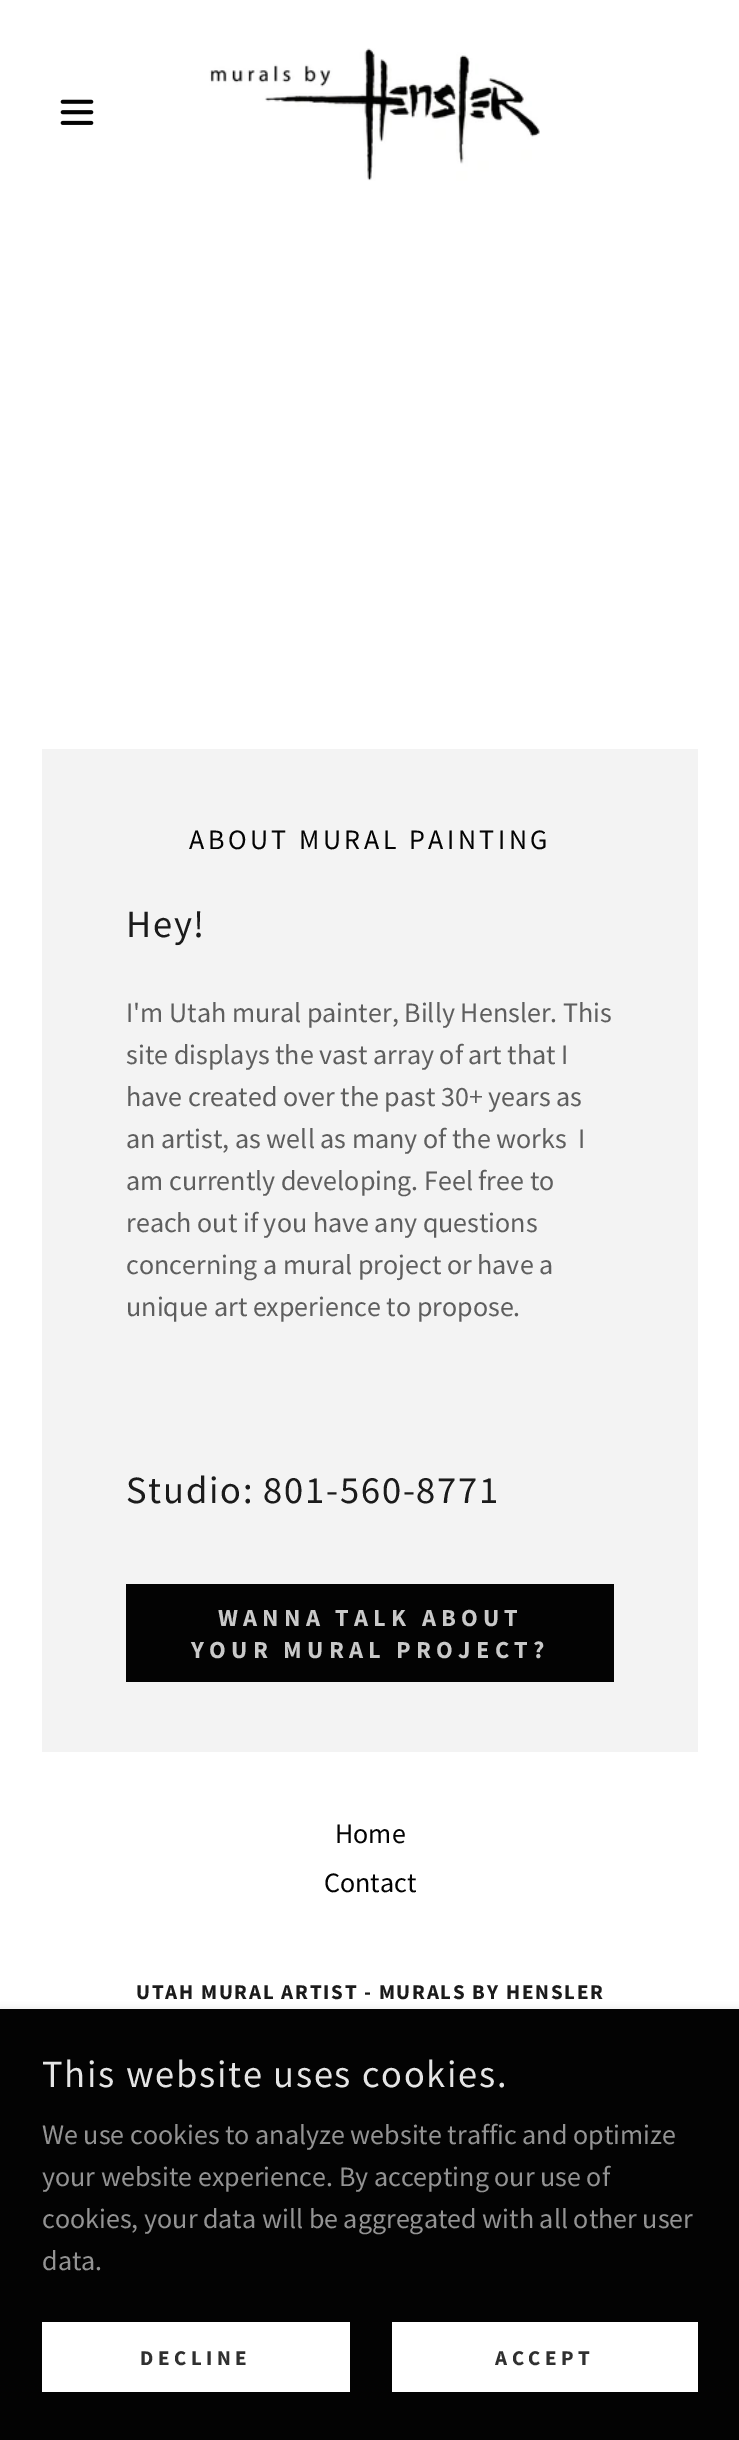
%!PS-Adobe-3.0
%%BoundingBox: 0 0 739 2440
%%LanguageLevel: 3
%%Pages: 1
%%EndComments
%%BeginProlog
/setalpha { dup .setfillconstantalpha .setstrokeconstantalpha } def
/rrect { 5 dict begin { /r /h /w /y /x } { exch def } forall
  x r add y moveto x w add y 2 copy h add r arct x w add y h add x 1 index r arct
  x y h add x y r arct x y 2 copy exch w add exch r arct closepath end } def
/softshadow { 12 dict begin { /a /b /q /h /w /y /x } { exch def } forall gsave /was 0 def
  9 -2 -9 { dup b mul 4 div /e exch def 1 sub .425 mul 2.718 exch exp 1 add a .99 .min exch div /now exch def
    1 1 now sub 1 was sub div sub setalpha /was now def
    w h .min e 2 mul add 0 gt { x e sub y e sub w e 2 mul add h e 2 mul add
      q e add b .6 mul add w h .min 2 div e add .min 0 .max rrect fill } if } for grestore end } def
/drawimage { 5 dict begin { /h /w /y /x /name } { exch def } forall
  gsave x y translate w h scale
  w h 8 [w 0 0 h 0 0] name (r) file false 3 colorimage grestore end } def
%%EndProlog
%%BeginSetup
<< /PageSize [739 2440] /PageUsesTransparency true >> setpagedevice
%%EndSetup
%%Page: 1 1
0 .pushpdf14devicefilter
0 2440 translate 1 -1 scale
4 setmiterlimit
1 setgray
0 0 739 2440 rectfill
(images/1.raw) 60 99 34 26 drawimage
(images/2.raw) 209 48 331 133 drawimage
0.953 setgray
42 749 656 1003 rectfill
0.012 setgray
126 1584 488 98 rectfill
0 setgray
0 2013 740 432 0 5 0.3 softshadow
0.012 setgray
0 2009 739 431 rectfill
1 setgray
42 2322 308 70 rectfill
392 2322 306 70 rectfill
/SourceSansPro-Regular [28 0 0 -28 0 0] selectfont
0.012 setgray
189 849 moveto 3.5 0 (ABOUT MURAL PAINTING) ashow
/SourceSansPro-Regular [38.5 0 0 -38.5 0 0] selectfont
0.106 setgray
126 937 moveto 1.75 0 (Hey!) ashow
/SourceSansPro-Regular [28 0 0 -28 0 0] selectfont
0.369 setgray
126 1022 moveto (I'm Utah mural painter, Billy Hensler. This) show
126 1064 moveto (site displays the vast array of art that I) show
126 1106 moveto (have created over the past 30+ years as) show
126 1148 moveto (an artist, as well as many of the works  I) show
126 1190 moveto (am currently developing. Feel free to) show
126 1232 moveto (reach out if you have any questions) show
126 1274 moveto (concerning a mural project or have a) show
126 1316 moveto (unique art experience to propose.) show
/SourceSansPro-Regular [38.5 0 0 -38.5 0 0] selectfont
0.106 setgray
126 1503 moveto 1.75 0 (Studio: 801-560-8771) ashow
/SourceSansPro-Bold [24.5 0 0 -24.5 0 0] selectfont
0.788 setgray
218 1626 moveto 5.25 0 (WANNA TALK ABOUT) ashow
191 1658 moveto 5.25 0 (YOUR MURAL PROJECT?) ashow
/SourceSansPro-Regular [28 0 0 -28 0 0] selectfont
0.012 setgray
335 1843 moveto (Home) show
324 1892 moveto (Contact) show
/SourceSansPro-Bold [21 0 0 -21 0 0] selectfont
0.106 setgray
136 1999 moveto 1.75 0 (UTAH MURAL ARTIST - MURALS BY HENSLER) ashow
/SourceSansPro-Regular [38.5 0 0 -38.5 0 0] selectfont
0.898 setgray
42 2087 moveto 1.75 0 (This website uses cookies.) ashow
/SourceSansPro-Regular [28 0 0 -28 0 0] selectfont
0.576 setgray
42 2144 moveto (We use cookies to analyze website traffic and optimize) show
42 2186 moveto (your website experience. By accepting our use of) show
42 2228 moveto (cookies, your data will be aggregated with all other user) show
42 2270 moveto (data.) show
/SourceSansPro-Bold [21 0 0 -21 0 0] selectfont
0.188 setgray
140 2365 moveto 4.5 0 (DECLINE) ashow
495 2365 moveto 4.5 0 (ACCEPT) ashow
.poppdf14devicefilter showpage
%%EOF
